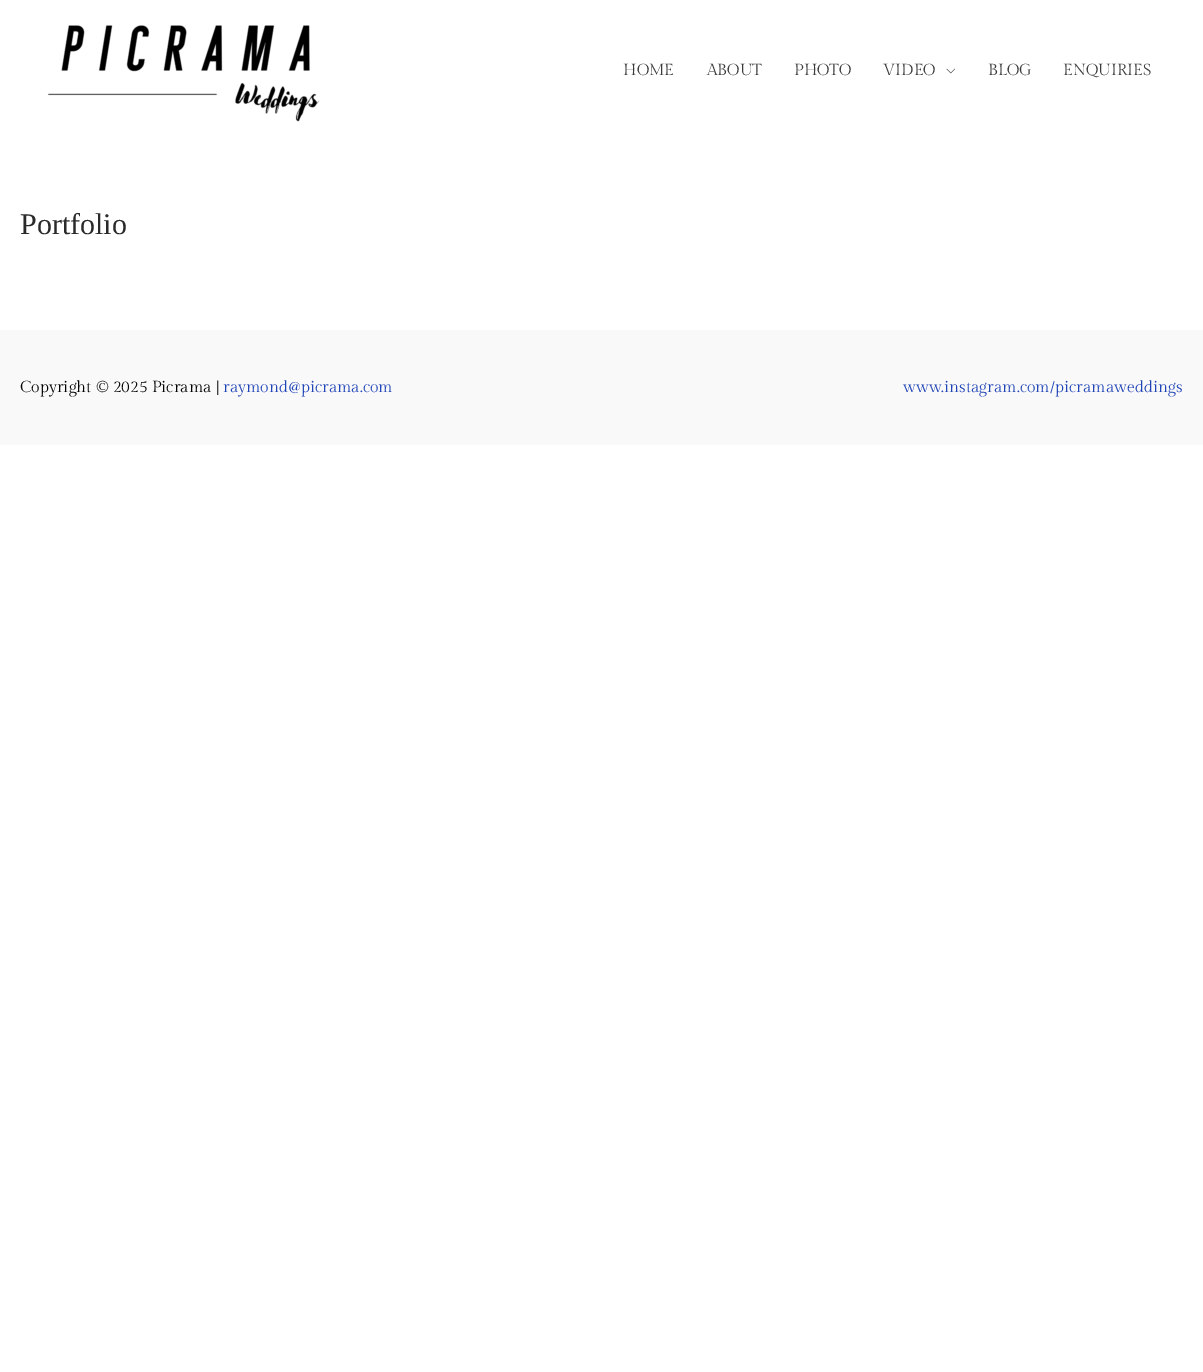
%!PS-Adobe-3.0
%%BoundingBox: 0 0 1203 1372
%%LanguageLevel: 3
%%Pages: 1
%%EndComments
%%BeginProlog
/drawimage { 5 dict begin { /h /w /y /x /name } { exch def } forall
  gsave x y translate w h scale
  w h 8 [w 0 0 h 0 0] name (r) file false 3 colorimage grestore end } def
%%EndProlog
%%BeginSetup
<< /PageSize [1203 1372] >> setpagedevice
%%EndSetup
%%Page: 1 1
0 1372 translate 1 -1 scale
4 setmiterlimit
1 setgray
0 0 1203 1372 rectfill
(images/1.raw) 47 25 273 97 drawimage
(images/2.raw) 946 68 9 6 drawimage
0.976 setgray
0 330 1203 115 rectfill
/GildaDisplay-Regular [16 0 0 -16 0 0] selectfont
0.227 setgray
623 75 moveto (HOME) show
707 75 moveto (ABOUT) show
794 75 moveto (PHOTO) show
883 75 moveto (VIDEO) show
988 75 moveto (BLOG) show
1063 75 moveto (ENQUIRIES) show
/LiberationSerif-Regular [30 0 0 -30 0 0] selectfont
0.165 setgray
20 234 moveto (Portfolio) show
/GildaDisplay-Regular [16 0 0 -16 0 0] selectfont
0 setgray
20 392 moveto (Copyright © 2025 Picrama |) show
0.122 0.267 0.718 setrgbcolor
223 392 moveto (raymond@picrama.com) show
903 392 moveto (www.instagram.com/picramaweddings) show
showpage
%%EOF
